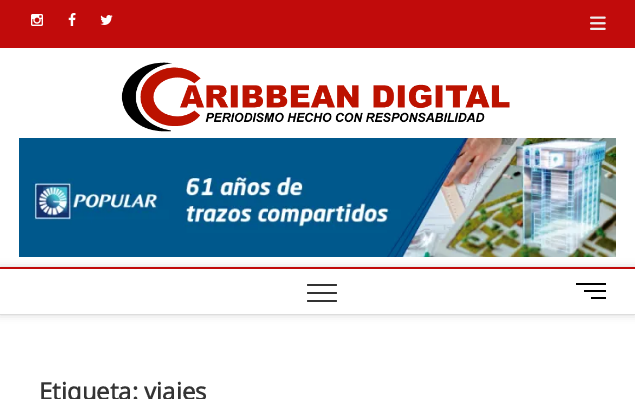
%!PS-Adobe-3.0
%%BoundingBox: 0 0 635 399
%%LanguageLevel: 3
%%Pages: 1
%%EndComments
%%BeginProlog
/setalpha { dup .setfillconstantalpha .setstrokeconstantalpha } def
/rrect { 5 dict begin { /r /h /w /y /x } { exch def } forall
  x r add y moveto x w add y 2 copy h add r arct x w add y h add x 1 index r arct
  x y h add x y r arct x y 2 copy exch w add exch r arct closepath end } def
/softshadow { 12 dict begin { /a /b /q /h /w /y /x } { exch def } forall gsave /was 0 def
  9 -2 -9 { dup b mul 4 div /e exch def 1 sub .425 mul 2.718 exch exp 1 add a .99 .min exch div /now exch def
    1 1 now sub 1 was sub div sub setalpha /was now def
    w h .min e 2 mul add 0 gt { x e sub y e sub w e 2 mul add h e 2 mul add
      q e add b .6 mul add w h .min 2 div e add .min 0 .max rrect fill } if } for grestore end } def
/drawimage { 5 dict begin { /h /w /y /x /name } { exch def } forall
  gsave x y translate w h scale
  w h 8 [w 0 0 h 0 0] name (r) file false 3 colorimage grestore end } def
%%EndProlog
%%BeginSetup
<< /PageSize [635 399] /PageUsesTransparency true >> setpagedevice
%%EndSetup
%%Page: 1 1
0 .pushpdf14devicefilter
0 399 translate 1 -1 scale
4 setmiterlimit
1 setgray
0 0 635 399 rectfill
0.757 0.043 0.043 setrgbcolor
0 0 635 48 rectfill
(images/1.raw) 31 14 12 12 drawimage
(images/2.raw) 68 13 8 13 drawimage
(images/3.raw) 100 15 13 10 drawimage
(images/4.raw) 590 16 16 14 drawimage
(images/5.raw) 121 62 389 70 drawimage
(images/6.raw) 19 138 597 119 drawimage
gsave
newpath 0 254 moveto 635 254 lineto 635 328 lineto 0 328 lineto closepath 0 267 moveto 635 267 lineto 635 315 lineto 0 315 lineto closepath eoclip newpath
0 setgray
0 267 635 48 0 4 0.15 softshadow
grestore
0 267 635 2 rectfill
0.867 setgray
0 314 635 1 rectfill
0.2 setgray
307 292 30 2 1 rrect fill
307 284 30 2 1 rrect fill
307 300 30 2 1 rrect fill
0 setgray
584 290 22 2 rectfill
576 283 30 2 rectfill
591 297 15 2 rectfill
/OpenSans-Bold [24 0 0 -24 0 0] selectfont
0.204 setgray
39 400 moveto (Etiqueta: viajes) show
.poppdf14devicefilter showpage
%%EOF
